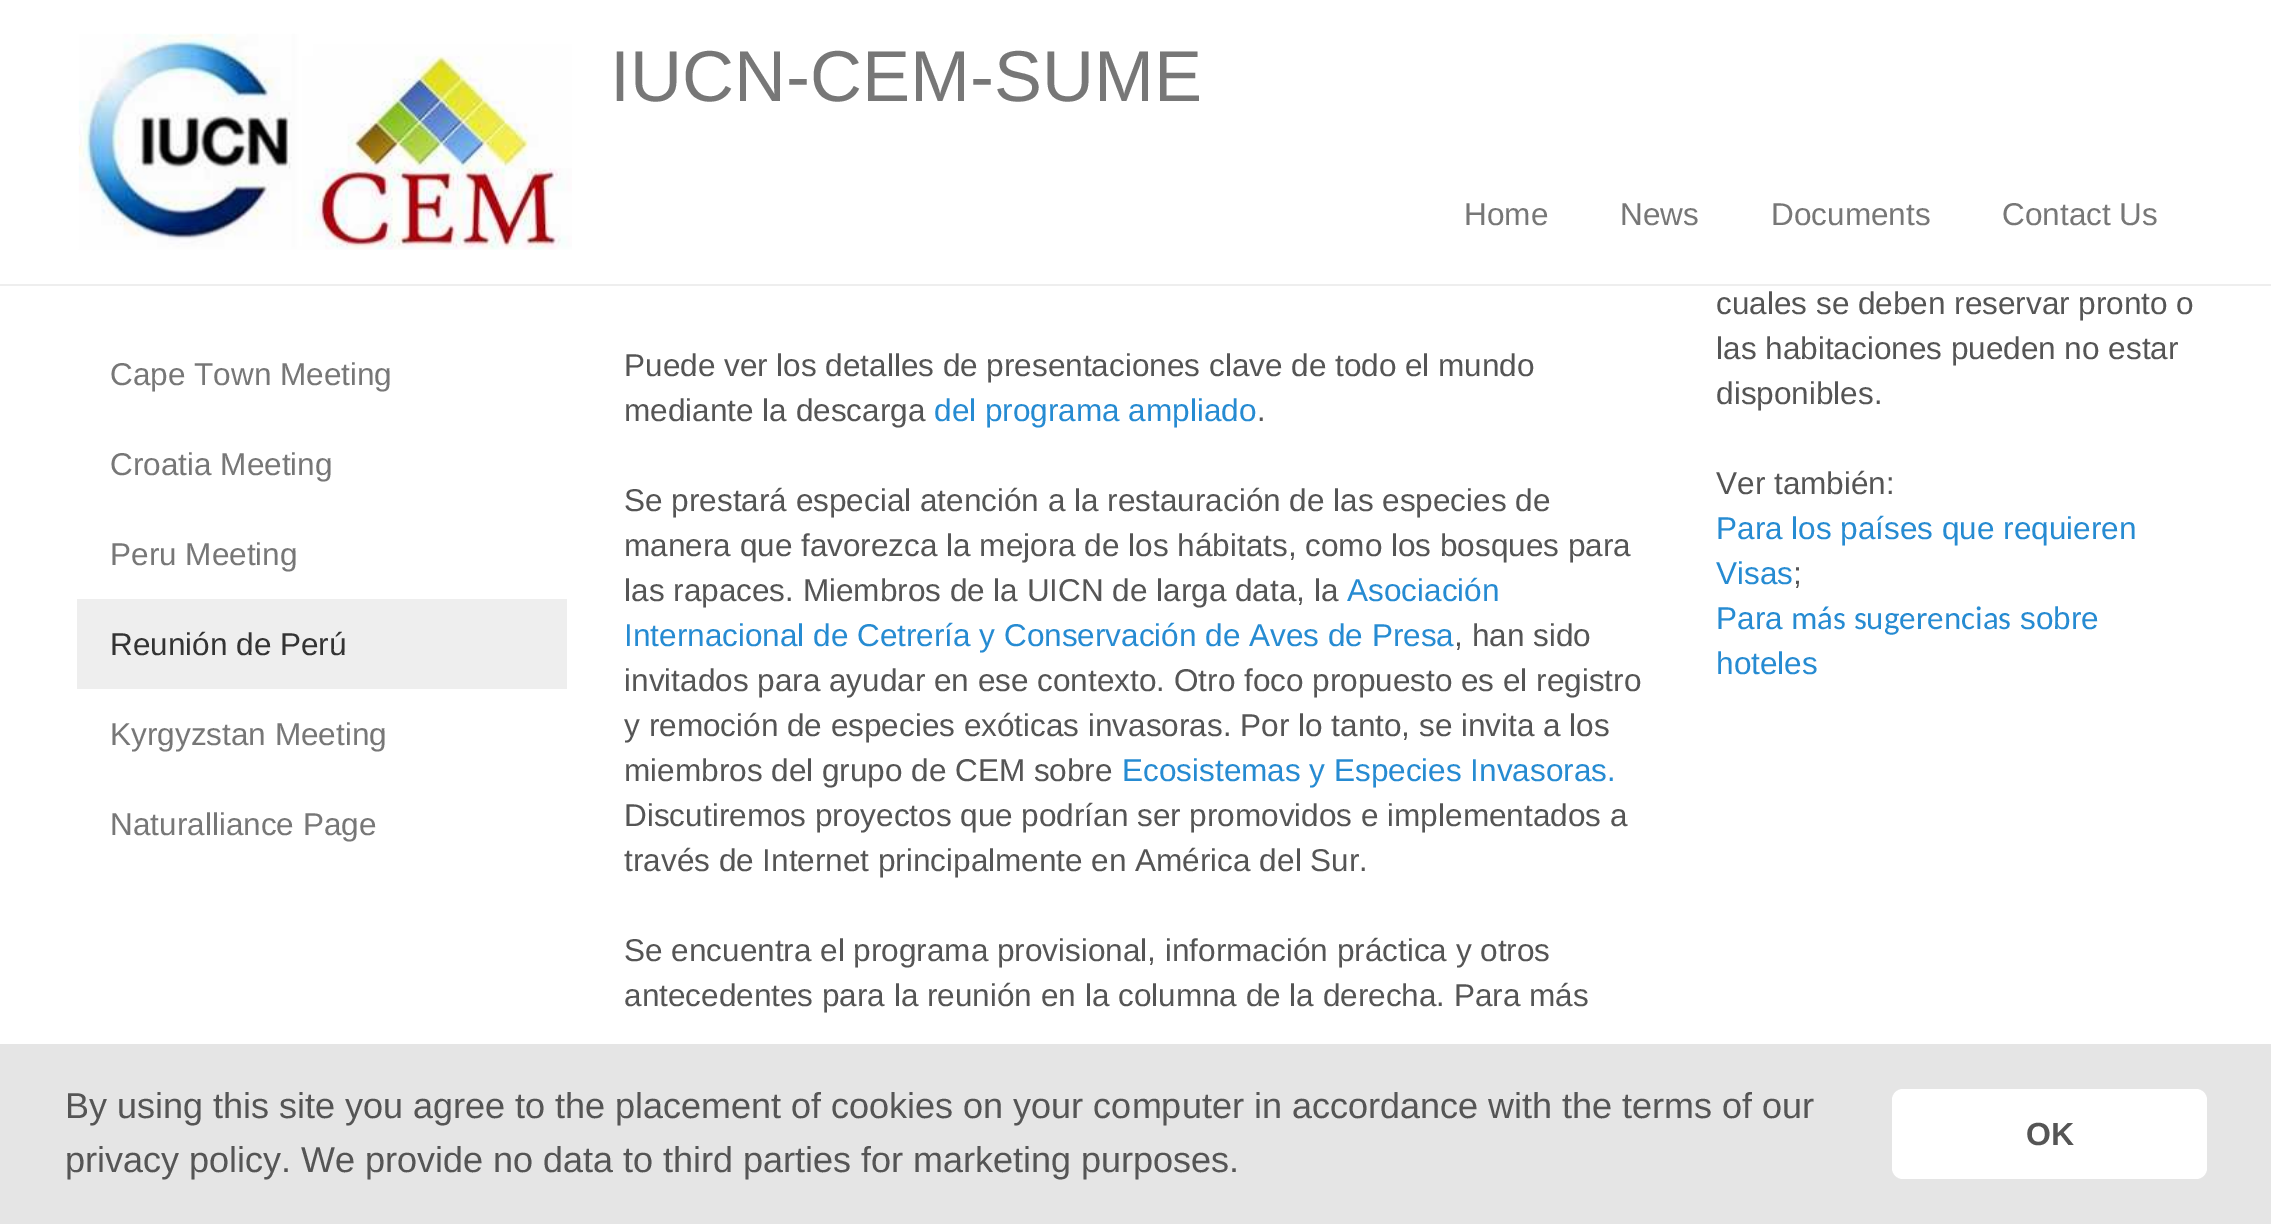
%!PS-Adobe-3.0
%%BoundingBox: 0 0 2271 1224
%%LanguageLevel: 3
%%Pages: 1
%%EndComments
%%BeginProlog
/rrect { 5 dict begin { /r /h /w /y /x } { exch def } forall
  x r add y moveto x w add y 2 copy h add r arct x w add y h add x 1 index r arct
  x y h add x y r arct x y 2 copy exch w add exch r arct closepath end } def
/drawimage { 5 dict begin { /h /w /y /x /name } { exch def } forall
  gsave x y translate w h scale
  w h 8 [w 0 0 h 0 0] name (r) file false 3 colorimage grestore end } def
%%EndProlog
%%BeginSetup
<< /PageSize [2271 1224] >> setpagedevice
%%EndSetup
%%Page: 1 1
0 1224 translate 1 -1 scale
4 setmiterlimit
1 setgray
0 0 2271 1224 rectfill
0.933 setgray
0 284 2271 2 rectfill
(images/1.raw) 78 33 494 217 drawimage
77 599 490 90 rectfill
0.898 setgray
0 1044 2271 180 rectfill
1 setgray
1892 1089 315 90 11 rrect fill
/LiberationSans-Regular [72 0 0 -72 0 0] selectfont
0.467 setgray
610 101 moveto (IUCN-CEM-SUME) show
/LiberationSans-Regular [31.5 0 0 -31.5 0 0] selectfont
1464 225 moveto (Home) show
1620 225 moveto (News) show
1771 225 moveto (Documents) show
2002 225 moveto (Contact Us) show
110 385 moveto (Cape Town Meeting) show
110 475 moveto (Croatia Meeting) show
110 565 moveto (Peru Meeting) show
0.2 setgray
110 655 moveto (Reunión de Perú) show
0.467 setgray
110 745 moveto (Kyrgyzstan Meeting) show
110 835 moveto (Naturalliance Page) show
0.333 setgray
624 376 moveto (Puede ver los detalles de presentaciones clave de todo el mundo) show
624 421 moveto (mediante la descarga) show
0.149 0.545 0.824 setrgbcolor
934 421 moveto (del programa ampliado) show
0.333 setgray
1257 421 moveto (.) show
624 511 moveto (Se prestará especial atención a la restauración de las especies de) show
624 556 moveto (manera que favorezca la mejora de los hábitats, como los bosques para) show
624 601 moveto (las rapaces. Miembros de la UICN de larga data, la) show
0.149 0.545 0.824 setrgbcolor
1347 601 moveto (Asociación) show
624 646 moveto (Internacional de Cetrería y Conservación de Aves de Presa) show
0.333 setgray
1454 646 moveto (, han sido) show
624 691 moveto (invitados para ayudar en ese contexto. Otro foco propuesto es el registro) show
624 736 moveto (y remoción de especies exóticas invasoras. Por lo tanto, se invita a los) show
624 781 moveto (miembros del grupo de CEM sobre) show
0.149 0.545 0.824 setrgbcolor
1122 781 moveto (Ecosistemas y Especies Invasoras.) show
0.333 setgray
624 826 moveto (Discutiremos proyectos que podrían ser promovidos e implementados a) show
624 871 moveto (través de Internet principalmente en América del Sur.) show
624 961 moveto (Se encuentra el programa provisional, información práctica y otros) show
624 1006 moveto (antecedentes para la reunión en la columna de la derecha. Para más) show
1716 314 moveto (cuales se deben reservar pronto o) show
1716 359 moveto (las habitaciones pueden no estar) show
1716 404 moveto (disponibles.) show
1716 494 moveto (Ver también:) show
0.149 0.545 0.824 setrgbcolor
1716 539 moveto (Para los países que requieren) show
1716 584 moveto (Visas) show
0.333 setgray
1793 584 moveto (;) show
0.149 0.545 0.824 setrgbcolor
1716 629 moveto (Para) show
/Carlito-Regular [33 0 0 -33 0 0] selectfont
1791 629 moveto (más sugerencias) show
/LiberationSans-Regular [31.5 0 0 -31.5 0 0] selectfont
2020 629 moveto (sobre) show
1716 674 moveto (hoteles) show
/LiberationSans-Regular [36 0 0 -36 0 0] selectfont
0.333 setgray
65 1118 moveto (By using this site you agree to the placement of cookies on your computer in accordance with the terms of our) show
65 1172 moveto (privacy policy. We provide no data to third parties for marketing purposes.) show
/LiberationSans-Bold [32 0 0 -32 0 0] selectfont
2026 1145 moveto (OK) show
showpage
%%EOF
